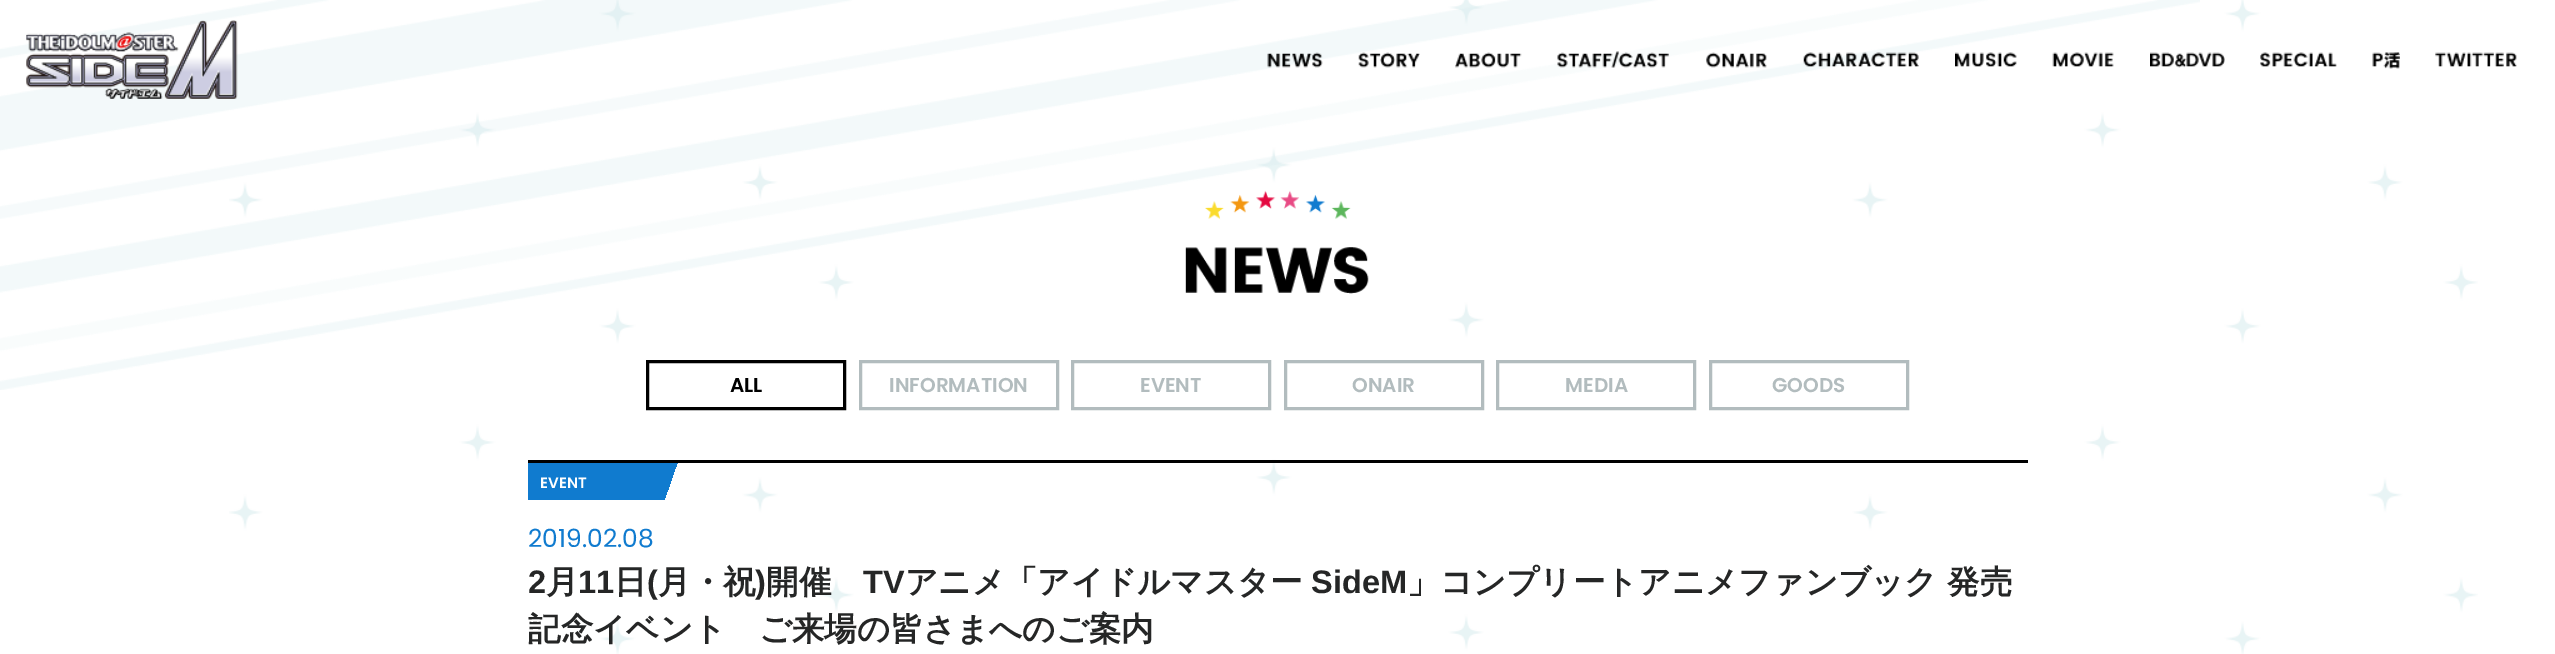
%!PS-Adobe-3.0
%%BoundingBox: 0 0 2555 654
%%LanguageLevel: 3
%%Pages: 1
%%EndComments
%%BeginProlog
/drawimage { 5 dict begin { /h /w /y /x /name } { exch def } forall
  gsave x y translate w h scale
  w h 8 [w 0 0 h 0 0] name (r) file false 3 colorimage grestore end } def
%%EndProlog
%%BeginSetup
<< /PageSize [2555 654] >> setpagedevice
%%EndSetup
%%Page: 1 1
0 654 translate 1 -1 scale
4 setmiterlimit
1 setgray
0 0 2555 654 rectfill
(images/15.raw) 229 0 2249 654 drawimage
(images/1.raw) 0 0 2200 390 drawimage
(images/2.raw) 26 20 212 79 drawimage
(images/3.raw) 1267 52 56 16 drawimage
(images/4.raw) 1358 52 62 16 drawimage
(images/5.raw) 1455 52 67 16 drawimage
(images/6.raw) 1557 51 112 17 drawimage
(images/7.raw) 1706 52 61 16 drawimage
(images/8.raw) 1803 52 116 15 drawimage
(images/9.raw) 1955 52 62 15 drawimage
(images/10.raw) 2052 52 62 15 drawimage
(images/11.raw) 2150 52 75 16 drawimage
(images/12.raw) 2260 52 77 15 drawimage
(images/13.raw) 2372 52 28 17 drawimage
(images/14.raw) 2435 52 82 15 drawimage
(images/16.raw) 1185 190 184 104 drawimage
0 setgray
3 setlinewidth
647.5 361.5 197 47 rectstroke
0.698 0.737 0.745 setrgbcolor
860.5 361.5 197 47 rectstroke
1072.5 361.5 197 47 rectstroke
1285.5 361.5 197 47 rectstroke
1497.5 361.5 197 47 rectstroke
1710.5 361.5 197 47 rectstroke
0 setgray
528 460 1500 3 rectfill
0.063 0.482 0.812 setrgbcolor
528 463 137 37 rectfill
gsave newpath 665 463 moveto 678 463 lineto 678 498 lineto 665 498 lineto closepath clip newpath
<< /ShadingType 2 /ColorSpace /DeviceRGB /Coords [683 485 660 477] /Extend [true true] /Function << /FunctionType 3 /Domain [0 1] /Functions [<< /FunctionType 2 /Domain [0 1] /C0 [1 1 1] /C1 [1 1 1] /N 1 >> << /FunctionType 2 /Domain [0 1] /C0 [0.063 0.482 0.812] /C1 [0.063 0.482 0.812] /N 1 >>] /Bounds [0.5] /Encode [0 1 0 1] >> >> shfill grestore
/Poppins-SemiBold [20 0 0 -20 0 0] selectfont
0 setgray
730 392 moveto (ALL) show
0.698 0.737 0.745 setrgbcolor
889 392 moveto (INFORMATION) show
1140 392 moveto (EVENT) show
1352 392 moveto (ONAIR) show
1565 392 moveto (MEDIA) show
1772 392 moveto (GOODS) show
/Poppins-SemiBold [15 0 0 -15 0 0] selectfont
1 setgray
540 488 moveto (EVENT) show
/Poppins-Regular [25 0 0 -25 0 0] selectfont
0.063 0.482 0.812 setrgbcolor
528 547 moveto (2019.02.08) show
/LiberationSans-Bold [32.5 0 0 -32.5 0 0] selectfont
0.145 0.149 0.149 setrgbcolor
528 593 moveto (2) show
/WenQuanYiZenHei-Bold [32.5 0 0 -32.5 0 0] selectfont
546 593 moveto (月) show
/LiberationSans-Bold [32.5 0 0 -32.5 0 0] selectfont
578 593 moveto (11) show
/WenQuanYiZenHei-Bold [32.5 0 0 -32.5 0 0] selectfont
614 593 moveto (日) show
/LiberationSans-Bold [32.5 0 0 -32.5 0 0] selectfont
647 593 moveto (\() show
/WenQuanYiZenHei-Bold [32.5 0 0 -32.5 0 0] selectfont
658 593 moveto (月・祝) show
/LiberationSans-Bold [32.5 0 0 -32.5 0 0] selectfont
755 593 moveto (\)) show
/WenQuanYiZenHei-Bold [32.5 0 0 -32.5 0 0] selectfont
766 593 moveto (開催) show
/LiberationSans-Bold [32.5 0 0 -32.5 0 0] selectfont
863 593 moveto (TV) show
/WenQuanYiZenHei-Bold [32.5 0 0 -32.5 0 0] selectfont
905 593 moveto (アニメ「アイドルマスター) show
/LiberationSans-Bold [32.5 0 0 -32.5 0 0] selectfont
1311 593 moveto (SideM) show
/WenQuanYiZenHei-Bold [32.5 0 0 -32.5 0 0] selectfont
1407 593 moveto (」コンプリートアニメファンブック 発売) show
528 640 moveto (記念イベント　ご来場の皆さまへのご案内) show
showpage
%%EOF
